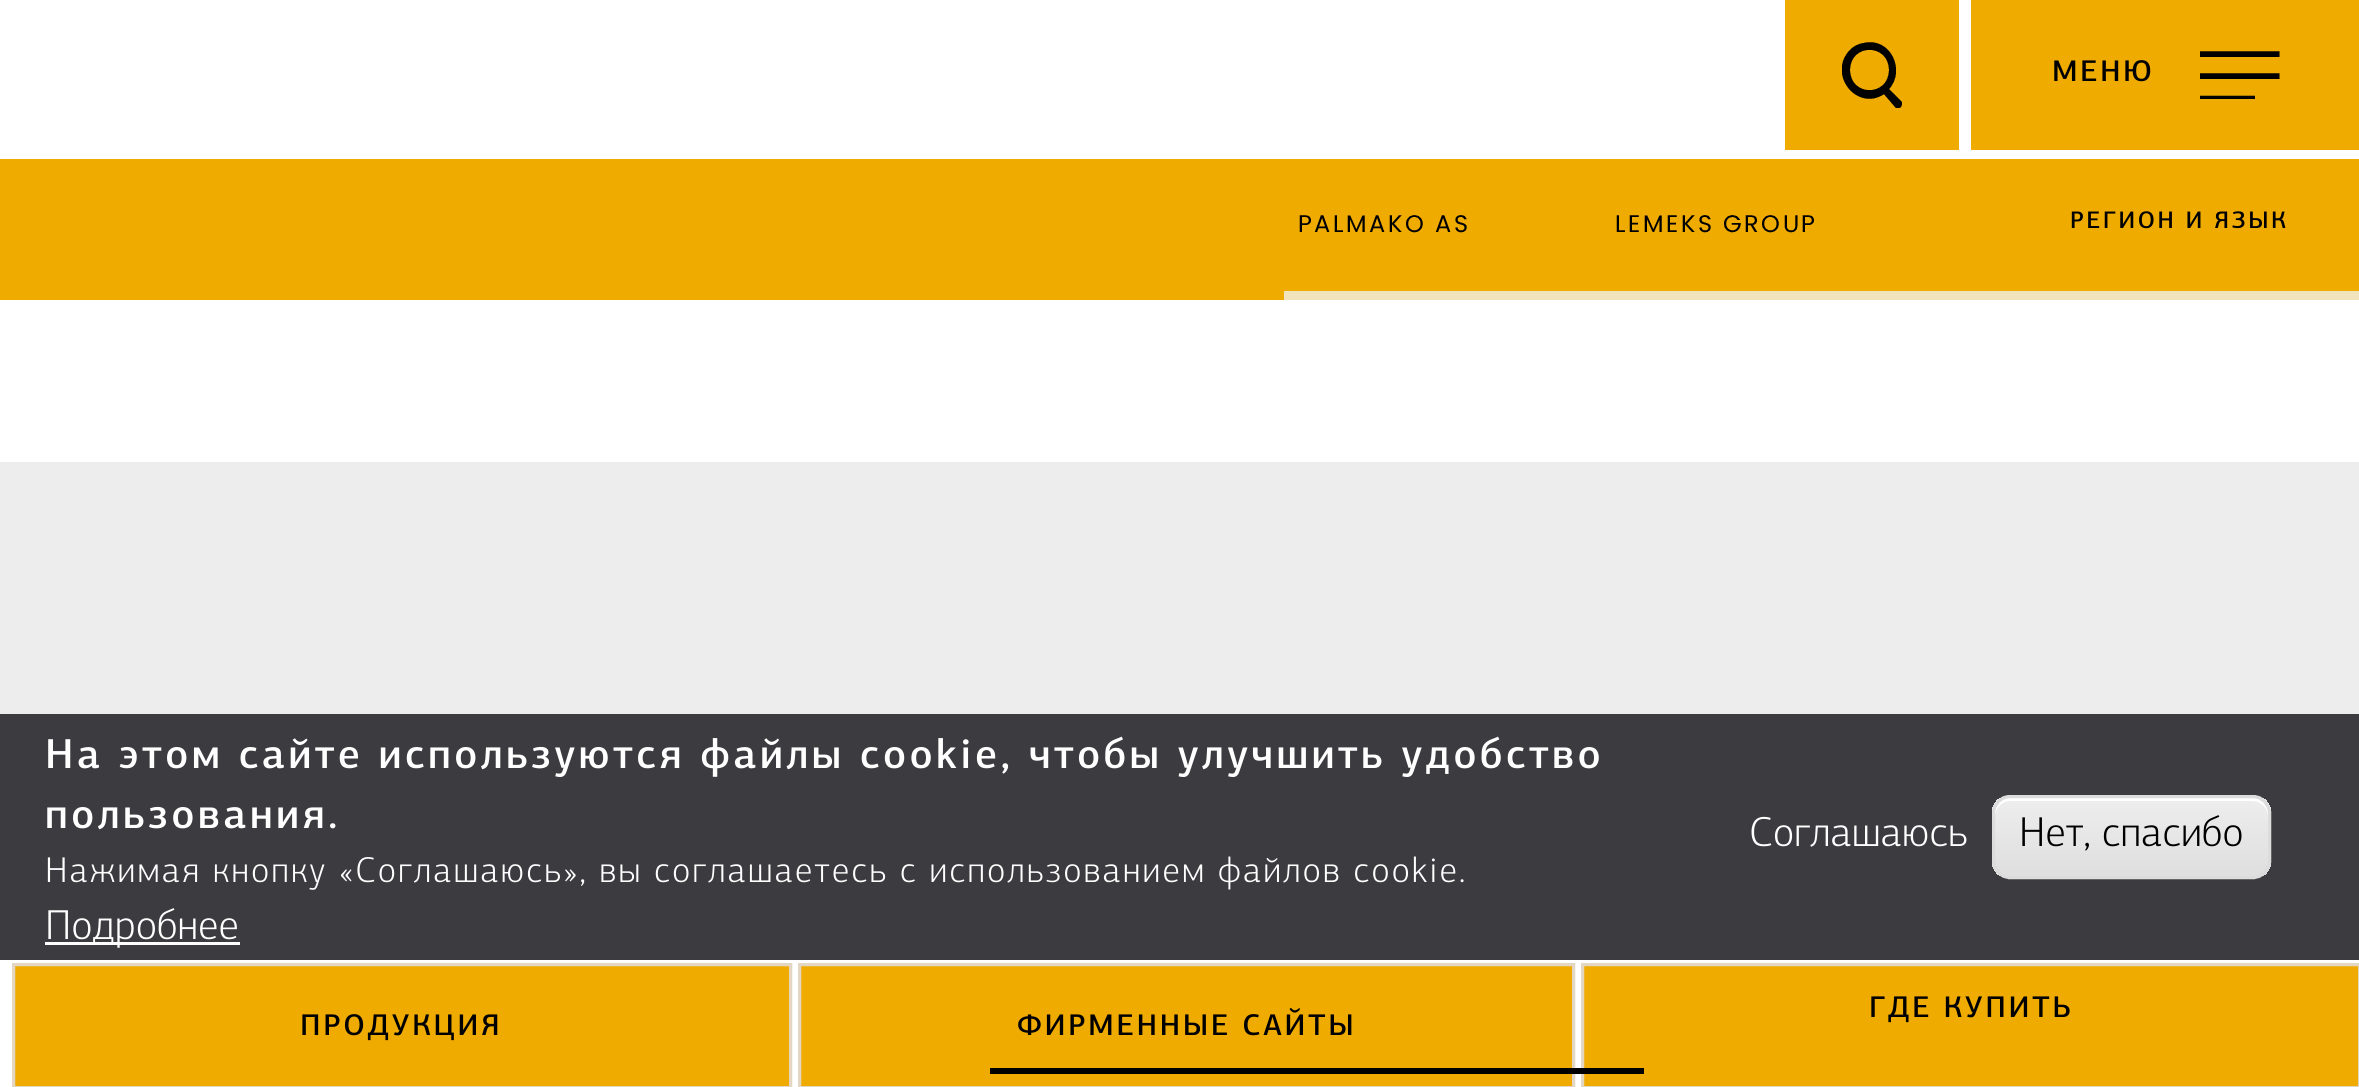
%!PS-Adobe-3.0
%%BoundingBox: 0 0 2359 1087
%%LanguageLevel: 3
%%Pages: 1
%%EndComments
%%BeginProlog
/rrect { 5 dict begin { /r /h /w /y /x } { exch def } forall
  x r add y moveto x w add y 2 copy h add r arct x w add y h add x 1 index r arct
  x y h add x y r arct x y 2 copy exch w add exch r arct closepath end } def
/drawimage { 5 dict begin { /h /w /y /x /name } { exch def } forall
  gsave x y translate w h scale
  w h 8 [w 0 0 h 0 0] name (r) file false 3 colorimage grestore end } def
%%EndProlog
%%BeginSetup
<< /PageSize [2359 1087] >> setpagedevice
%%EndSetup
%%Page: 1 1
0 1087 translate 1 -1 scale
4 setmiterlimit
1 setgray
0 0 2359 1087 rectfill
0.941 0.671 0 setrgbcolor
1785 0 174 150 rectfill
gsave
1842 42 60 66 rectclip
0 setgray
newpath 1901 101 moveto 1889 89 lineto 1906 70 1890 37 1864 43 curveto 1858 44 1854 46 1850 50 curveto 1827 74 1857 112 1884 94 curveto 1896 108 lineto 1900 110 1904 104 1901 101 curveto closepath 1850 70 moveto 1850 43 1889 43 1889 70 curveto 1889 97 1850 97 1850 70 curveto closepath fill
grestore
1971 0 388 150 rectfill
(images/1.raw) 2054 60 97 22 drawimage
gsave
2199 51 81 48 rectclip
0 setgray
5.6 setlinewidth
2 setlinecap
newpath 2203 54 moveto 2276.5 54 lineto 2203 76 moveto 2276.5 76 lineto 2203 98.5 moveto 2252 98.5 lineto stroke
grestore
0 159 2359 141 rectfill
0.945 0.89 0.733 setrgbcolor
1284 291 1075 9 rectfill
(images/2.raw) 2071 211 215 18 drawimage
0.929 setgray
0 462 2359 252 rectfill
0.941 0.671 0 setrgbcolor
newpath 13.5 964.5 moveto 790.5 964.5 lineto 790.5 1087.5 lineto 13.5 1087.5 lineto closepath gsave fill grestore
0.89 0.843 0.765 setrgbcolor
3 setlinewidth
stroke
(images/3.raw) 302 1014 196 27 drawimage
0.941 0.671 0 setrgbcolor
newpath 799.5 964.5 moveto 1573.5 964.5 lineto 1573.5 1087.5 lineto 799.5 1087.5 lineto closepath gsave fill grestore
0.89 0.843 0.765 setrgbcolor
stroke
(images/4.raw) 1018 1008 334 28 drawimage
0.941 0.671 0 setrgbcolor
newpath 1582.5 964.5 moveto 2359.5 964.5 lineto 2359.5 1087.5 lineto 1582.5 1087.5 lineto closepath gsave fill grestore
0.89 0.843 0.765 setrgbcolor
stroke
(images/5.raw) 1871 996 199 27 drawimage
0 setgray
990 1068 654 6 rectfill
0.235 0.231 0.251 setrgbcolor
0 714 2359 246 rectfill
(images/6.raw) 48 736 1551 41 drawimage
(images/7.raw) 47 806 289 24 drawimage
(images/8.raw) 47 856 1417 34 drawimage
1 setgray
45 942 195 3 rectfill
(images/9.raw) 48 908 189 40 drawimage
(images/10.raw) 1751 816 216 31 drawimage
gsave
1992 795 279 84 18 rrect clip newpath
gsave newpath 1992 798 moveto 2271 798 lineto 2271 876 lineto 1992 876 lineto closepath clip newpath
<< /ShadingType 2 /ColorSpace /DeviceRGB /Coords [2132 798 2132 876] /Extend [true true] /Function << /FunctionType 3 /Domain [0 1] /Functions [<< /FunctionType 2 /Domain [0 1] /C0 [0.929 0.929 0.929] /C1 [0.929 0.929 0.929] /N 1 >> << /FunctionType 2 /Domain [0 1] /C0 [0.929 0.929 0.929] /C1 [0.875 0.875 0.875] /N 1 >>] /Bounds [0.05] /Encode [0 1 0 1] >> >> shfill grestore
grestore
newpath 2010 801 moveto 2253 801 lineto 2261 801 2268 808 2268 816 curveto 2268 813 lineto 2268 805 2261 798 2253 798 curveto 2010 798 lineto 2002 798 1995 805 1995 813 curveto 1995 816 lineto 1995 808 2002 801 2010 801 curveto closepath fill
0.863 setgray
1993.5 796.5 276 81 16.5 rrect stroke
(images/11.raw) 2022 815 220 36 drawimage
/Poppins-Regular [24 0 0 -24 0 0] selectfont
0 setgray
1298 232 moveto 2.5 0 (PALMAKO AS) ashow
1615 232 moveto 2.5 0 (LEMEKS GROUP) ashow
showpage
%%EOF
